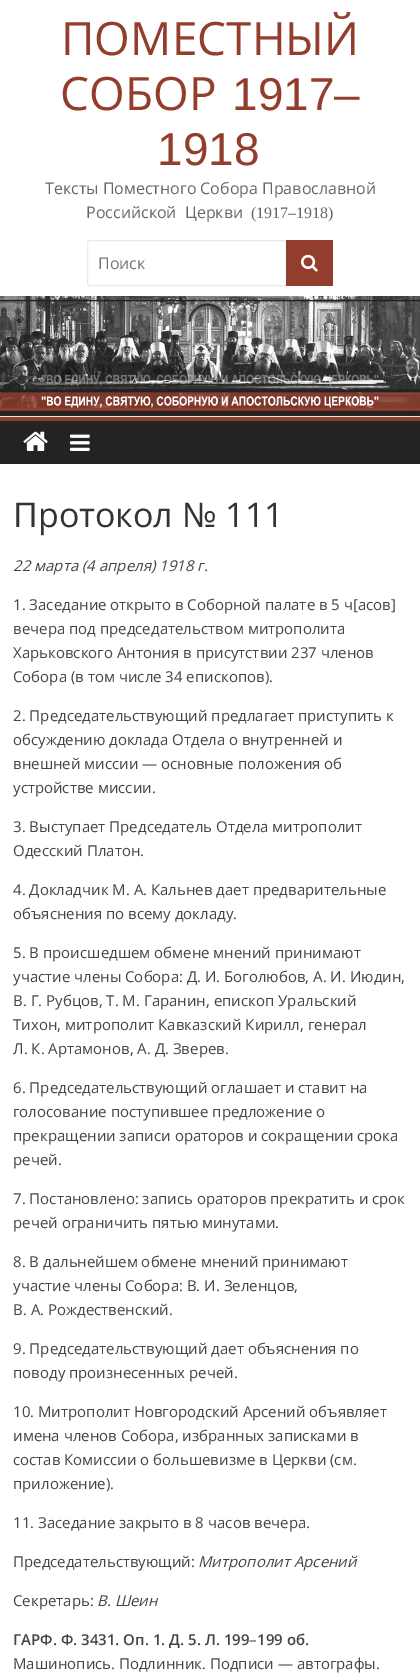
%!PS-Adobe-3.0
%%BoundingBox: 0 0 420 1680
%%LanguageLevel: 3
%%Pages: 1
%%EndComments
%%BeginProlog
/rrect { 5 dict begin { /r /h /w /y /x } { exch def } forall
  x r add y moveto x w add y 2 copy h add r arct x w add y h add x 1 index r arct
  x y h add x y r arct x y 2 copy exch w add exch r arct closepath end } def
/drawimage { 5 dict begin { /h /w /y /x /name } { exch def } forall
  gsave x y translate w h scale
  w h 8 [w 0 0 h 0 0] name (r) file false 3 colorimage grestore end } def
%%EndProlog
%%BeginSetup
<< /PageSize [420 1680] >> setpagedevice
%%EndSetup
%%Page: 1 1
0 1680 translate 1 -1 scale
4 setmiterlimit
1 setgray
0 0 420 1680 rectfill
0.918 setgray
87.5 240.5 199 45 2.5 rrect stroke
0.576 0.239 0.173 setrgbcolor
286 240 47 46 rectfill
(images/1.raw) 301 254 17 18 drawimage
(images/2.raw) 0 296 420 120 drawimage
0.918 setgray
0 416 420 1 rectfill
0.137 setgray
0 421 420 43 rectfill
0.576 0.239 0.173 setrgbcolor
0 417 420 4 rectfill
(images/3.raw) 23 431 25 20 drawimage
(images/4.raw) 70 434 20 17 drawimage
/OpenSans-Regular [46 0 0 -46 0 0] selectfont
61 55 moveto (ПОМЕСТНЫЙ) show
60 110 moveto (СОБОР) show
/LiberationSans-Regular [46 0 0 -46 0 0] selectfont
232 110 moveto (1917‒) show
157 165 moveto (1918) show
/OpenSans-Regular [16 0 0 -16 0 0] selectfont
0.4 setgray
45 194 moveto (Тексты Поместного Собора Православной) show
86 218 moveto 4 0 32 (Российской Церкви) widthshow
/LiberationSerif-Regular [16 0 0 -16 0 0] selectfont
251 218 moveto (\(1917‒1918\)) show
/OpenSans-Regular [16 0 0 -16 0 0] selectfont
0.459 setgray
98 269 moveto (Поиск) show
/OpenSans-Regular [34 0 0 -34 0 0] selectfont
0.2 setgray
13 527 moveto (Протокол № 111) show
/OpenSans-Italic [15 0 0 -15 0 0] selectfont
0.267 setgray
13 571 moveto (22 марта \(4 апреля\) 1918 г.) show
/OpenSans-Regular [15 0 0 -15 0 0] selectfont
13 610 moveto (1. Заседание открыто в Соборной палате в 5 ч[асов]) show
13 634 moveto (вечера под председательством митрополита) show
13 658 moveto (Харьковского Антония в присутствии 237 членов) show
13 682 moveto (Собора \(в том числе 34 епископов\).) show
13 721 moveto (2. Председательствующий предлагает приступить к) show
13 745 moveto (обсуждению доклада Отдела о внутренней и) show
13 769 moveto (внешней миссии — основные положения об) show
13 793 moveto (устройстве миссии.) show
13 832 moveto (3. Выступает Председатель Отдела митрополит) show
13 856 moveto (Одесский Платон.) show
13 895 moveto (4. Докладчик М. А. Кальнев дает предварительные) show
13 919 moveto (объяснения по всему докладу.) show
13 958 moveto (5. В происшедшем обмене мнений принимают) show
13 982 moveto (участие члены Собора: Д. И. Боголюбов, А. И. Июдин,) show
13 1006 moveto (В. Г. Рубцов, Т. М. Гаранин, епископ Уральский) show
13 1030 moveto (Тихон, митрополит Кавказский Кирилл, генерал) show
13 1054 moveto (Л. К. Артамонов, А. Д. Зверев.) show
13 1093 moveto (6. Председательствующий оглашает и ставит на) show
13 1117 moveto (голосование поступившее предложение о) show
13 1141 moveto (прекращении записи ораторов и сокращении срока) show
13 1165 moveto (речей.) show
13 1204 moveto (7. Постановлено: запись ораторов прекратить и срок) show
13 1228 moveto (речей ограничить пятью минутами.) show
13 1267 moveto (8. В дальнейшем обмене мнений принимают) show
13 1291 moveto (участие члены Собора: В. И. Зеленцов,) show
13 1315 moveto (В. А. Рождественский.) show
13 1354 moveto (9. Председательствующий дает объяснения по) show
13 1378 moveto (поводу произнесенных речей.) show
13 1417 moveto (10. Митрополит Новгородский Арсений объявляет) show
13 1441 moveto (имена членов Собора, избранных записками в) show
13 1465 moveto (состав Комиссии о большевизме в Церкви \(см.) show
13 1489 moveto (приложение\).) show
13 1528 moveto (11. Заседание закрыто в 8 часов вечера.) show
13 1567 moveto (Председательствующий:) show
/OpenSans-Italic [15 0 0 -15 0 0] selectfont
198 1567 moveto (Митрополит Арсений) show
/OpenSans-Regular [15 0 0 -15 0 0] selectfont
13 1606 moveto (Секретарь:) show
/OpenSans-Italic [15 0 0 -15 0 0] selectfont
97 1606 moveto (В. Шеин) show
/OpenSans-SemiBold [15 0 0 -15 0 0] selectfont
13 1645 moveto (ГАРФ. Ф. 3431. Оп. 1. Д. 5. Л. 199) show
/OpenSans-Regular [15 0 0 -15 0 0] selectfont
249 1645 moveto (–) show
/OpenSans-SemiBold [15 0 0 -15 0 0] selectfont
257 1645 moveto (199 об.) show
/OpenSans-Regular [15 0 0 -15 0 0] selectfont
13 1669 moveto (Машинопись. Подлинник. Подписи — автографы.) show
showpage
%%EOF
